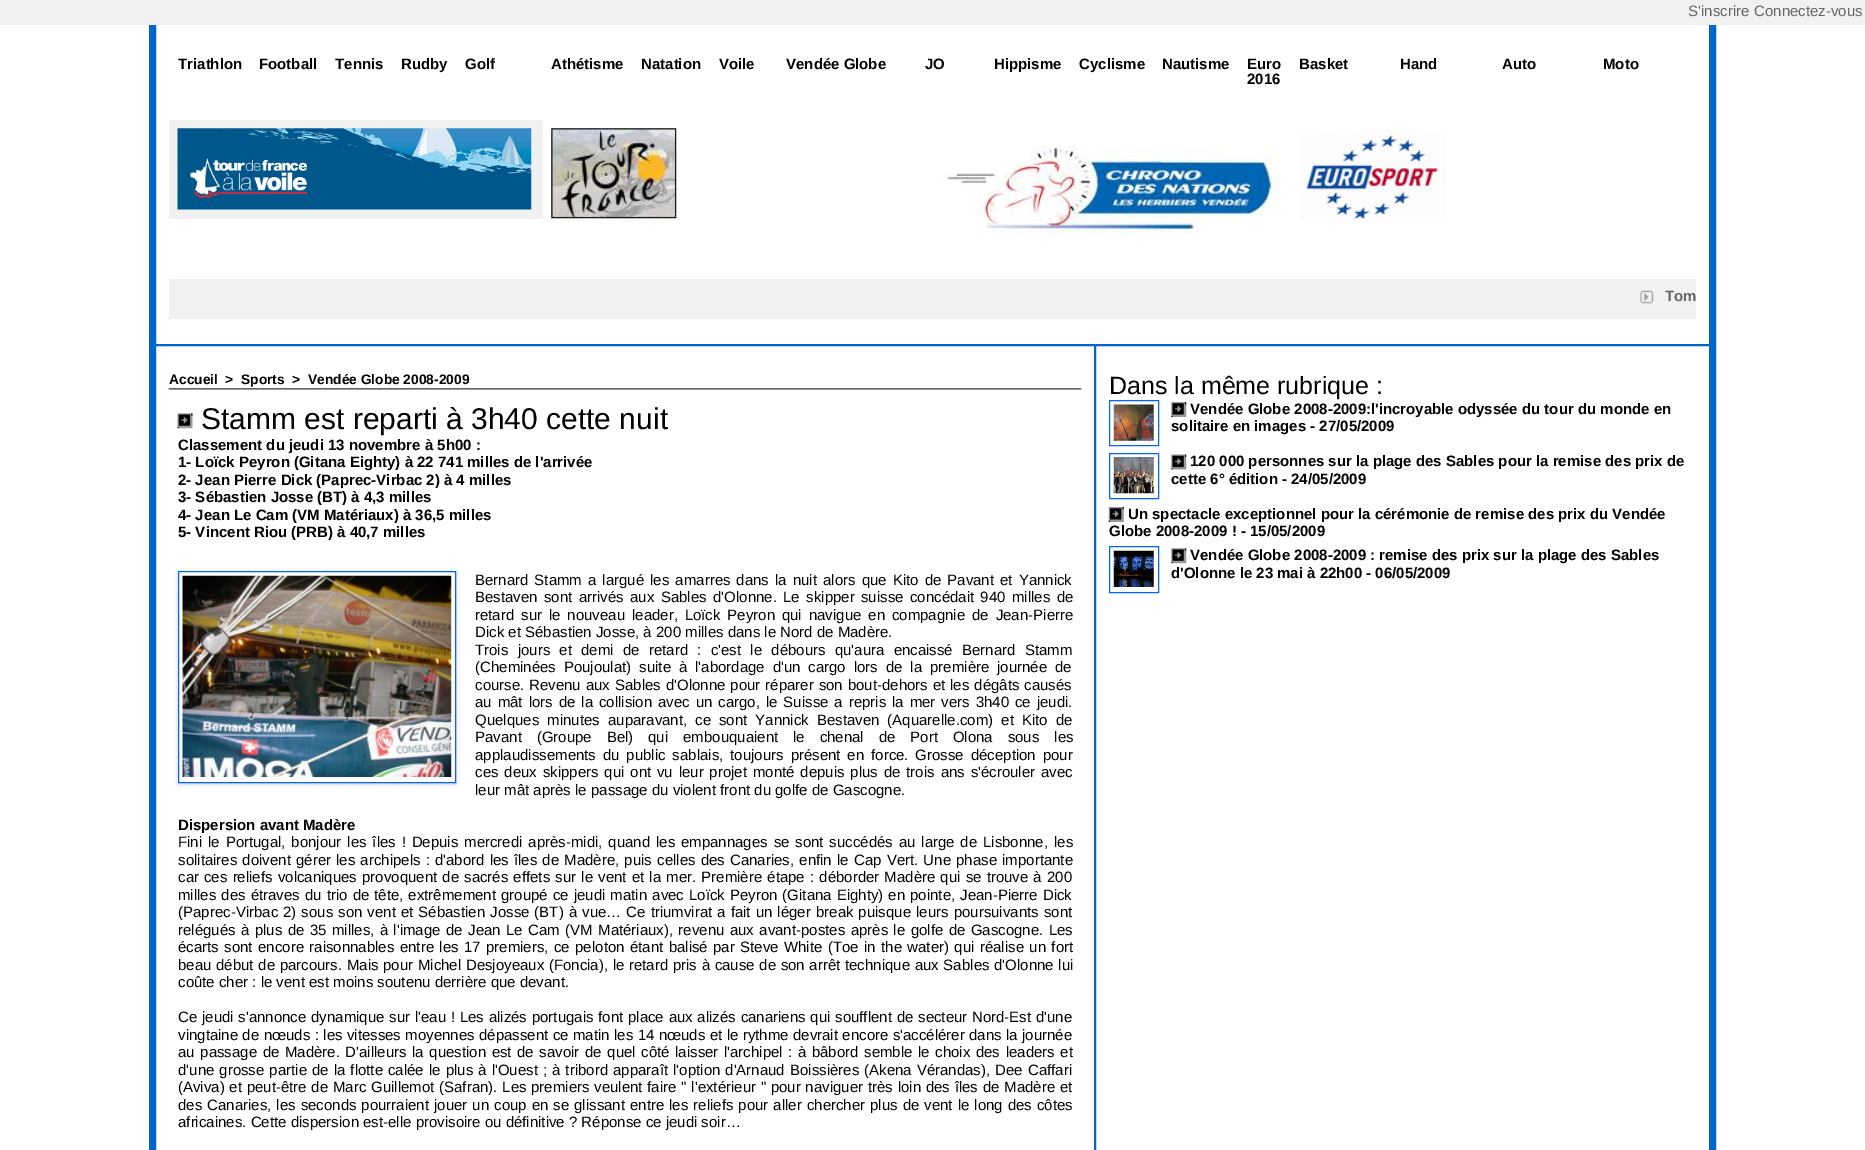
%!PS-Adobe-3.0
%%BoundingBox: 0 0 1865 1150
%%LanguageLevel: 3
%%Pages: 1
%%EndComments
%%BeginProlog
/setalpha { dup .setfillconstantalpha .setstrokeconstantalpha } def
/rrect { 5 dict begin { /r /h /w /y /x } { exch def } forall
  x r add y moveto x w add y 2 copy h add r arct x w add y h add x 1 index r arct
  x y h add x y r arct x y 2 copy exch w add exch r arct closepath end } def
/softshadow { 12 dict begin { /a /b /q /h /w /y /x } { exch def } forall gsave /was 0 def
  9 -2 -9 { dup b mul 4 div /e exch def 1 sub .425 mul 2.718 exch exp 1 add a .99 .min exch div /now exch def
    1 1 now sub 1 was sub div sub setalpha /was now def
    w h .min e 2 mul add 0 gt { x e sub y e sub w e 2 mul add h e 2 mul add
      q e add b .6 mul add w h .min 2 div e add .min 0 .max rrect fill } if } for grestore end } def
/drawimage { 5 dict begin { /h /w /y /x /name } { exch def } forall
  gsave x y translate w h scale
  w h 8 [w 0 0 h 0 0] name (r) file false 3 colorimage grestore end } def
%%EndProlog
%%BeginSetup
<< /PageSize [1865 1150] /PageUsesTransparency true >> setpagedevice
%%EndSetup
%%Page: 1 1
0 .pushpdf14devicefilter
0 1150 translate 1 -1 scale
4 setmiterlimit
1 setgray
0 0 1865 1150 rectfill
0 0.4 0.8 setrgbcolor
6 setlinewidth
152 -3 1561 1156 rectstroke
1 setlinewidth
155.5 -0.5 1554 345 rectstroke
0.945 setgray
0 0 1865 25 rectfill
169 120 374 99 rectfill
(images/1.raw) 177 128 355 82 drawimage
(images/2.raw) 551 128 126 91 drawimage
(images/3.raw) 943 146 336 89 drawimage
(images/4.raw) 1300 131 146 91 drawimage
169 279 1527 40 rectfill
(images/5.raw) 1640 290 14 14 drawimage
0 0.4 0.8 setrgbcolor
155.5 345.5 939 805 rectstroke
(images/6.raw) 168 388 914 2 drawimage
(images/7.raw) 177 413 16 16 drawimage
gsave
newpath 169 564 moveto 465 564 lineto 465 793 lineto 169 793 lineto closepath 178 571 moveto 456 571 lineto 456 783 lineto 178 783 lineto closepath eoclip newpath
0.8 setgray
178 573 278 211 0 2.5 1 softshadow
grestore
0 0.4 1 setrgbcolor
178.5 571.5 277 211 rectstroke
(images/8.raw) 182 575 270 202 drawimage
0 0.4 0.8 setrgbcolor
1095.5 345.5 614 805 rectstroke
0 0.4 1 setrgbcolor
1109.5 400.5 49 45 rectstroke
(images/9.raw) 1113 404 41 37 drawimage
(images/10.raw) 1171 402 16 15 drawimage
1109.5 453.5 49 45 rectstroke
(images/11.raw) 1113 457 41 37 drawimage
(images/12.raw) 1171 454 16 16 drawimage
(images/13.raw) 1108 507 16 15 drawimage
1109.5 546.5 49 46 rectstroke
(images/14.raw) 1113 550 41 37 drawimage
(images/15.raw) 1171 548 16 16 drawimage
/LiberationSans-Regular [15 0 0 -15 0 0] selectfont
0.4 setgray
1688 16 moveto (S'inscrire) show
1754 16 moveto (Connectez-vous) show
/LiberationSans-Bold [15 0 0 -15 0 0] selectfont
0 setgray
178 69 moveto (Triathlon) show
259 69 moveto (Football) show
335 69 moveto (Tennis) show
401 69 moveto (Rudby) show
465 69 moveto (Golf) show
551 69 moveto (Athétisme) show
641 69 moveto (Natation) show
719 69 moveto (Voile) show
786 69 moveto (Vendée Globe) show
925 69 moveto (JO) show
994 69 moveto (Hippisme) show
1079 69 moveto (Cyclisme) show
1162 69 moveto (Nautisme) show
1247 69 moveto (Euro) show
1247 84 moveto (2016) show
1299 69 moveto (Basket) show
1400 69 moveto (Hand) show
1502 69 moveto (Auto) show
1603 69 moveto (Moto) show
0.4 setgray
1665 301 moveto (Tom) show
/LiberationSans-Bold [13.75 0 0 -13.75 0 0] selectfont
0 setgray
169 384 moveto (Accueil) show
225 384 moveto (>) show
241 384 moveto (Sports) show
292 384 moveto (>) show
308 384 moveto (Vendée Globe 2008-2009) show
/LiberationSans-Regular [30 0 0 -30 0 0] selectfont
201 429 moveto (Stamm est reparti à 3h40 cette nuit) show
/LiberationSans-Bold [15 0 0 -15 0 0] selectfont
178 450 moveto (Classement du jeudi 13 novembre à 5h00 :) show
178 467 moveto (1- Loïck Peyron \(Gitana Eighty\) à 22 741 milles de l'arrivée) show
178 485 moveto (2- Jean Pierre Dick \(Paprec-Virbac 2\) à 4 milles) show
178 502 moveto (3- Sébastien Josse \(BT\) à 4,3 milles) show
178 520 moveto (4- Jean Le Cam \(VM Matériaux\) à 36,5 milles) show
178 537 moveto (5- Vincent Riou \(PRB\) à 40,7 milles) show
/LiberationSans-Regular [15 0 0 -15 0 0] selectfont
475 585 moveto 1.9 0 32 (Bernard Stamm a largué les amarres dans la nuit alors que Kito de Pavant et Yannick) widthshow
475 602 moveto 2.25 0 32 (Bestaven sont arrivés aux Sables d'Olonne. Le skipper suisse concédait 940 milles de) widthshow
475 620 moveto 2.75 0 32 (retard sur le nouveau leader, Loïck Peyron qui navigue en compagnie de Jean-Pierre) widthshow
475 637 moveto (Dick et Sébastien Josse, à 200 milles dans le Nord de Madère.) show
475 655 moveto 5.1 0 32 (Trois jours et demi de retard : c'est le débours qu'aura encaissé Bernard Stamm) widthshow
475 672 moveto 3.75 0 32 (\(Cheminées Poujoulat\) suite à l'abordage d'un cargo lors de la première journée de) widthshow
475 690 moveto 0.8 0 32 (course. Revenu aux Sables d'Olonne pour réparer son bout-dehors et les dégâts causés) widthshow
475 707 moveto 1.75 0 32 (au mât lors de la collision avec un cargo, le Suisse a repris la mer vers 3h40 ce jeudi.) widthshow
475 725 moveto 3.9 0 32 (Quelques minutes auparavant, ce sont Yannick Bestaven \(Aquarelle.com\) et Kito de) widthshow
475 742 moveto 10.75 0 32 (Pavant \(Groupe Bel\) qui embouquaient le chenal de Port Olona sous les) widthshow
475 760 moveto 2.75 0 32 (applaudissements du public sablais, toujours présent en force. Grosse déception pour) widthshow
475 777 moveto 1.7 0 32 (ces deux skippers qui ont vu leur projet monté depuis plus de trois ans s'écrouler avec) widthshow
475 795 moveto (leur mât après le passage du violent front du golfe de Gascogne.) show
/LiberationSans-Bold [15 0 0 -15 0 0] selectfont
178 830 moveto (Dispersion avant Madère) show
/LiberationSans-Regular [15 0 0 -15 0 0] selectfont
178 847 moveto 1.7 0 32 (Fini le Portugal, bonjour les îles ! Depuis mercredi après-midi, quand les empannages se sont succédés au large de Lisbonne, les) widthshow
178 865 moveto 1 0 32 (solitaires doivent gérer les archipels : d'abord les îles de Madère, puis celles des Canaries, enfin le Cap Vert. Une phase importante) widthshow
178 882 moveto 1 0 32 (car ces reliefs volcaniques provoquent de sacrés effets sur le vent et la mer. Première étape : déborder Madère qui se trouve à 200) widthshow
178 900 moveto 0.9 0 32 (milles des étraves du trio de tête, extrêmement groupé ce jeudi matin avec Loïck Peyron \(Gitana Eighty\) en pointe, Jean-Pierre Dick) widthshow
178 917 moveto 0.9 0 32 (\(Paprec-Virbac 2\) sous son vent et Sébastien Josse \(BT\) à vue… Ce triumvirat a fait un léger break puisque leurs poursuivants sont) widthshow
178 935 moveto 1.25 0 32 (relégués à plus de 35 milles, à l'image de Jean Le Cam \(VM Matériaux\), revenu aux avant-postes après le golfe de Gascogne. Les) widthshow
178 952 moveto 1.25 0 32 (écarts sont encore raisonnables entre les 17 premiers, ce peloton étant balisé par Steve White \(Toe in the water\) qui réalise un fort) widthshow
178 970 moveto 0.5 0 32 (beau début de parcours. Mais pour Michel Desjoyeaux \(Foncia\), le retard pris à cause de son arrêt technique aux Sables d'Olonne lui) widthshow
178 987 moveto (coûte cher : le vent est moins soutenu derrière que devant.) show
178 1022 moveto 0.6 0 32 (Ce jeudi s'annonce dynamique sur l'eau ! Les alizés portugais font place aux alizés canariens qui soufflent de secteur Nord-Est d'une) widthshow
178 1040 moveto 0.25 0 32 (vingtaine de nœuds : les vitesses moyennes dépassent ce matin les 14 nœuds et le rythme devrait encore s'accélérer dans la journée) widthshow
178 1057 moveto 1.4 0 32 (au passage de Madère. D'ailleurs la question est de savoir de quel côté laisser l'archipel : à bâbord semble le choix des leaders et) widthshow
178 1075 moveto 0.9 0 32 (d'une grosse partie de la flotte calée le plus à l'Ouest ; à tribord apparaît l'option d'Arnaud Boissières \(Akena Vérandas\), Dee Caffari) widthshow
178 1092 moveto 0.6 0 32 (\(Aviva\) et peut-être de Marc Guillemot \(Safran\). Les premiers veulent faire " l'extérieur " pour naviguer très loin des îles de Madère et) widthshow
178 1110 moveto 0.85 0 32 (des Canaries, les seconds pourraient jouer un coup en se glissant entre les reliefs pour aller chercher plus de vent le long des côtes) widthshow
178 1127 moveto (africaines. Cette dispersion est-elle provisoire ou définitive ? Réponse ce jeudi soir…) show
/LiberationSans-Regular [25 0 0 -25 0 0] selectfont
1109 394 moveto (Dans la même rubrique :) show
/LiberationSans-Bold [15 0 0 -15 0 0] selectfont
1190 414 moveto (Vendée Globe 2008-2009:l'incroyable odyssée du tour du monde en) show
1171 431 moveto (solitaire en images - 27/05/2009) show
1190 466 moveto (120 000 personnes sur la plage des Sables pour la remise des prix de) show
1171 484 moveto (cette 6° édition - 24/05/2009) show
1128 519 moveto (Un spectacle exceptionnel pour la cérémonie de remise des prix du Vendée) show
1109 536 moveto (Globe 2008-2009 ! - 15/05/2009) show
1190 560 moveto (Vendée Globe 2008-2009 : remise des prix sur la plage des Sables) show
1171 578 moveto (d'Olonne le 23 mai à 22h00 - 06/05/2009) show
.poppdf14devicefilter showpage
%%EOF
